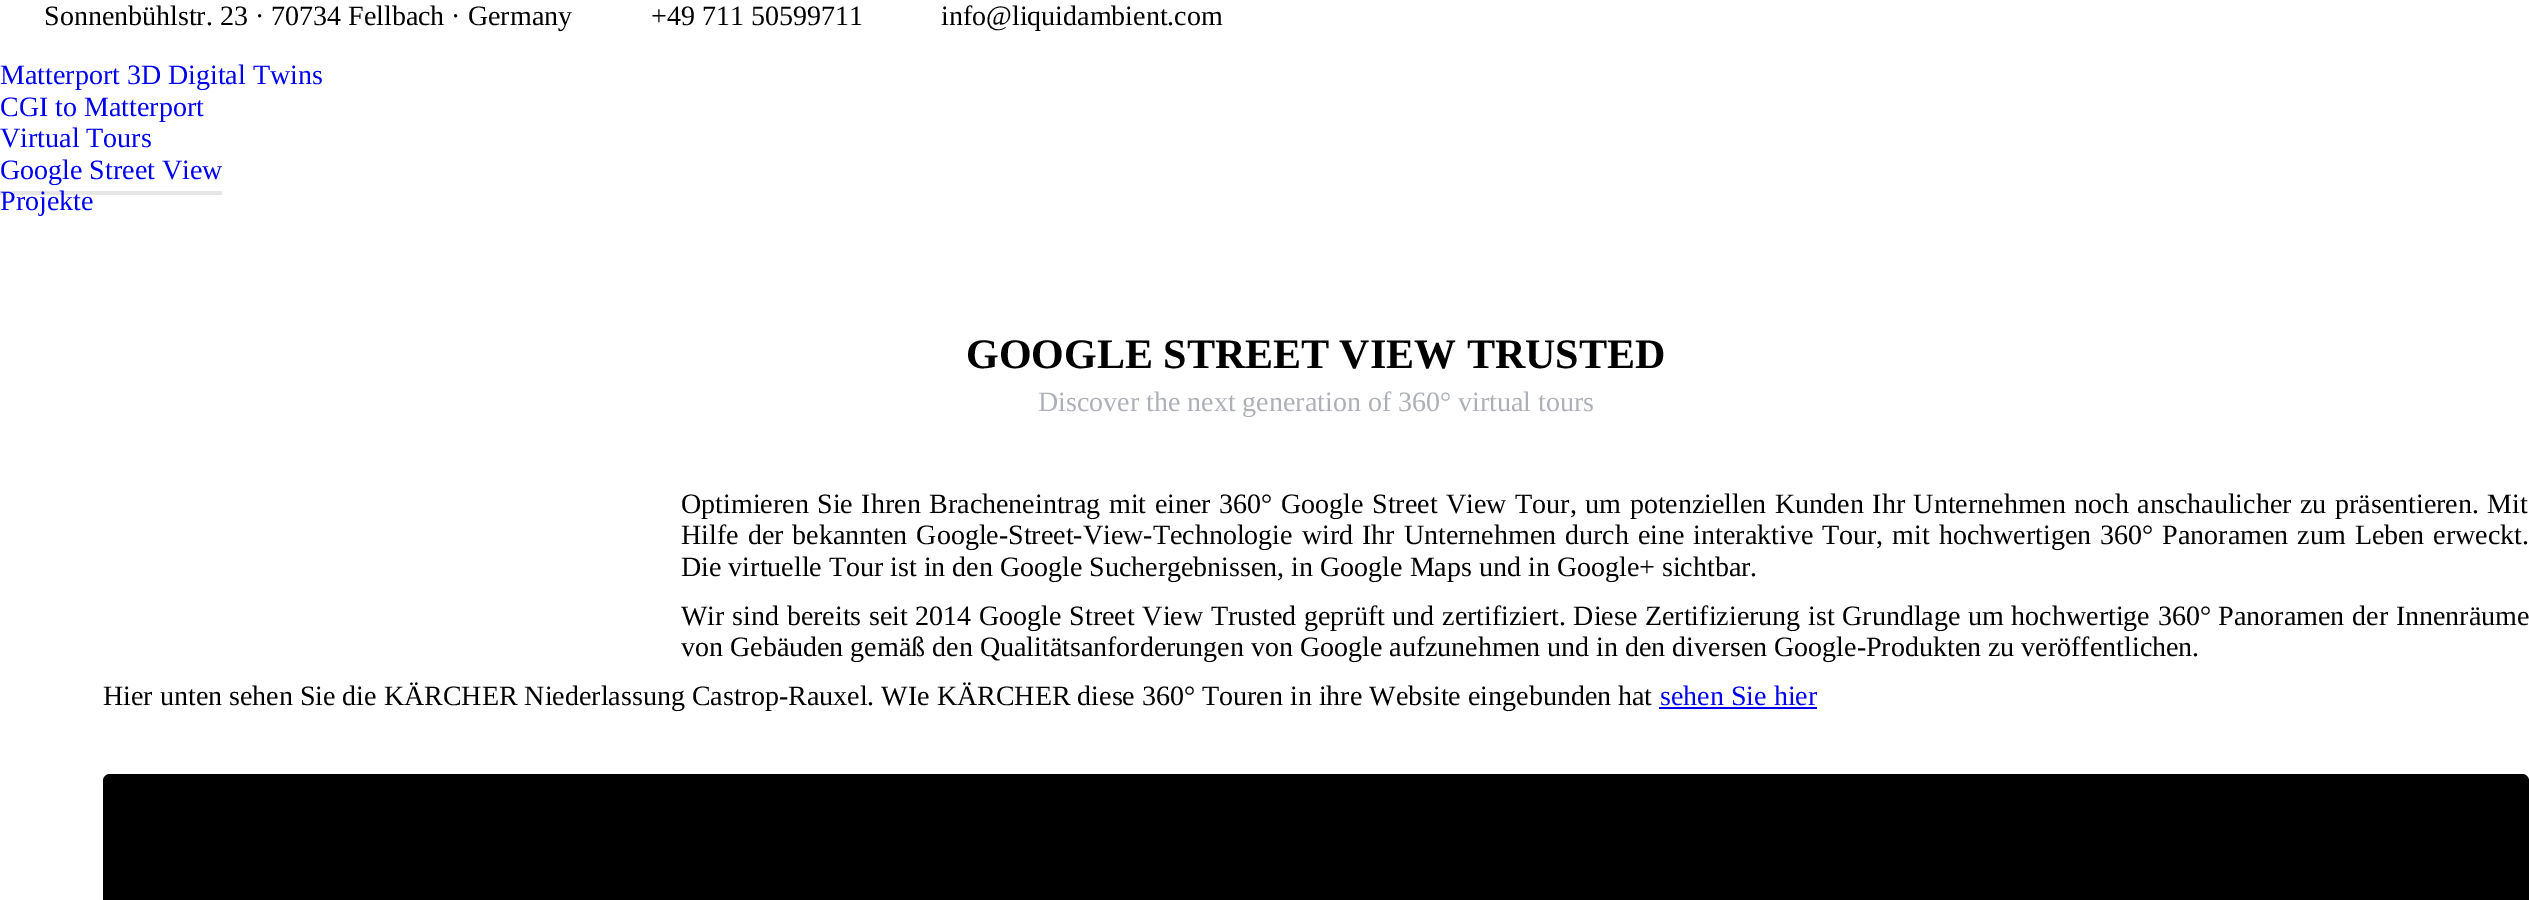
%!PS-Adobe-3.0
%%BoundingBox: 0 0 2529 900
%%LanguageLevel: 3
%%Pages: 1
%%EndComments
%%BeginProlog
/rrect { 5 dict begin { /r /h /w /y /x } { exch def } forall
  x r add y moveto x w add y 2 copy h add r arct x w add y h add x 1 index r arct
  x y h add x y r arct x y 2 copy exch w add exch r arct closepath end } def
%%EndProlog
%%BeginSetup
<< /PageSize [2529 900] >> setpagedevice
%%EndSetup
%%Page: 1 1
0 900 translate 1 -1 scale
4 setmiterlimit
1 setgray
0 0 2529 900 rectfill
0.902 setgray
0 191 222 4 rectfill
0 0 0.933 setrgbcolor
1659 707 158 2 rectfill
0 setgray
103 774 2426 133 7 rrect fill
/LiberationSerif-Regular [28 0 0 -28 0 0] selectfont
44 25 moveto (Sonnenbühlstr. 23 · 70734 Fellbach · Germany) show
651 25 moveto (+49 711 50599711) show
941 25 moveto (info@liquidambient.com) show
0 0 0.933 setrgbcolor
0 84 moveto (Matterport 3D Digital Twins) show
0 116 moveto (CGI to Matterport) show
0 147 moveto (Virtual Tours) show
0 179 moveto (Google Street View) show
0 210 moveto (Projekte) show
/LiberationSerif-Bold [42 0 0 -42 0 0] selectfont
0 setgray
966 368 moveto (GOOGLE STREET VIEW TRUSTED) show
/LiberationSerif-Regular [28 0 0 -28 0 0] selectfont
0.678 0.69 0.714 setrgbcolor
1038 411 moveto (Discover the next generation of 360° virtual tours) show
0 setgray
681 513 moveto 1.6 0 32 (Optimieren Sie Ihren Bracheneintrag mit einer 360° Google Street View Tour, um potenziellen Kunden Ihr Unternehmen noch anschaulicher zu präsentieren. Mit) widthshow
681 544 moveto 2 0 32 (Hilfe der bekannten Google-Street-View-Technologie wird Ihr Unternehmen durch eine interaktive Tour, mit hochwertigen 360° Panoramen zum Leben erweckt.) widthshow
681 576 moveto (Die virtuelle Tour ist in den Google Suchergebnissen, in Google Maps und in Google+ sichtbar.) show
681 625 moveto 0.7 0 32 (Wir sind bereits seit 2014 Google Street View Trusted geprüft und zertifiziert. Diese Zertifizierung ist Grundlage um hochwertige 360° Panoramen der Innenräume) widthshow
681 656 moveto (von Gebäuden gemäß den Qualitätsanforderungen von Google aufzunehmen und in den diversen Google-Produkten zu veröffentlichen.) show
103 705 moveto (Hier unten sehen Sie die KÄRCHER Niederlassung Castrop-Rauxel. WIe KÄRCHER diese 360° Touren in ihre Website eingebunden hat) show
0 0 0.933 setrgbcolor
1660 705 moveto (sehen Sie hier) show
showpage
%%EOF
